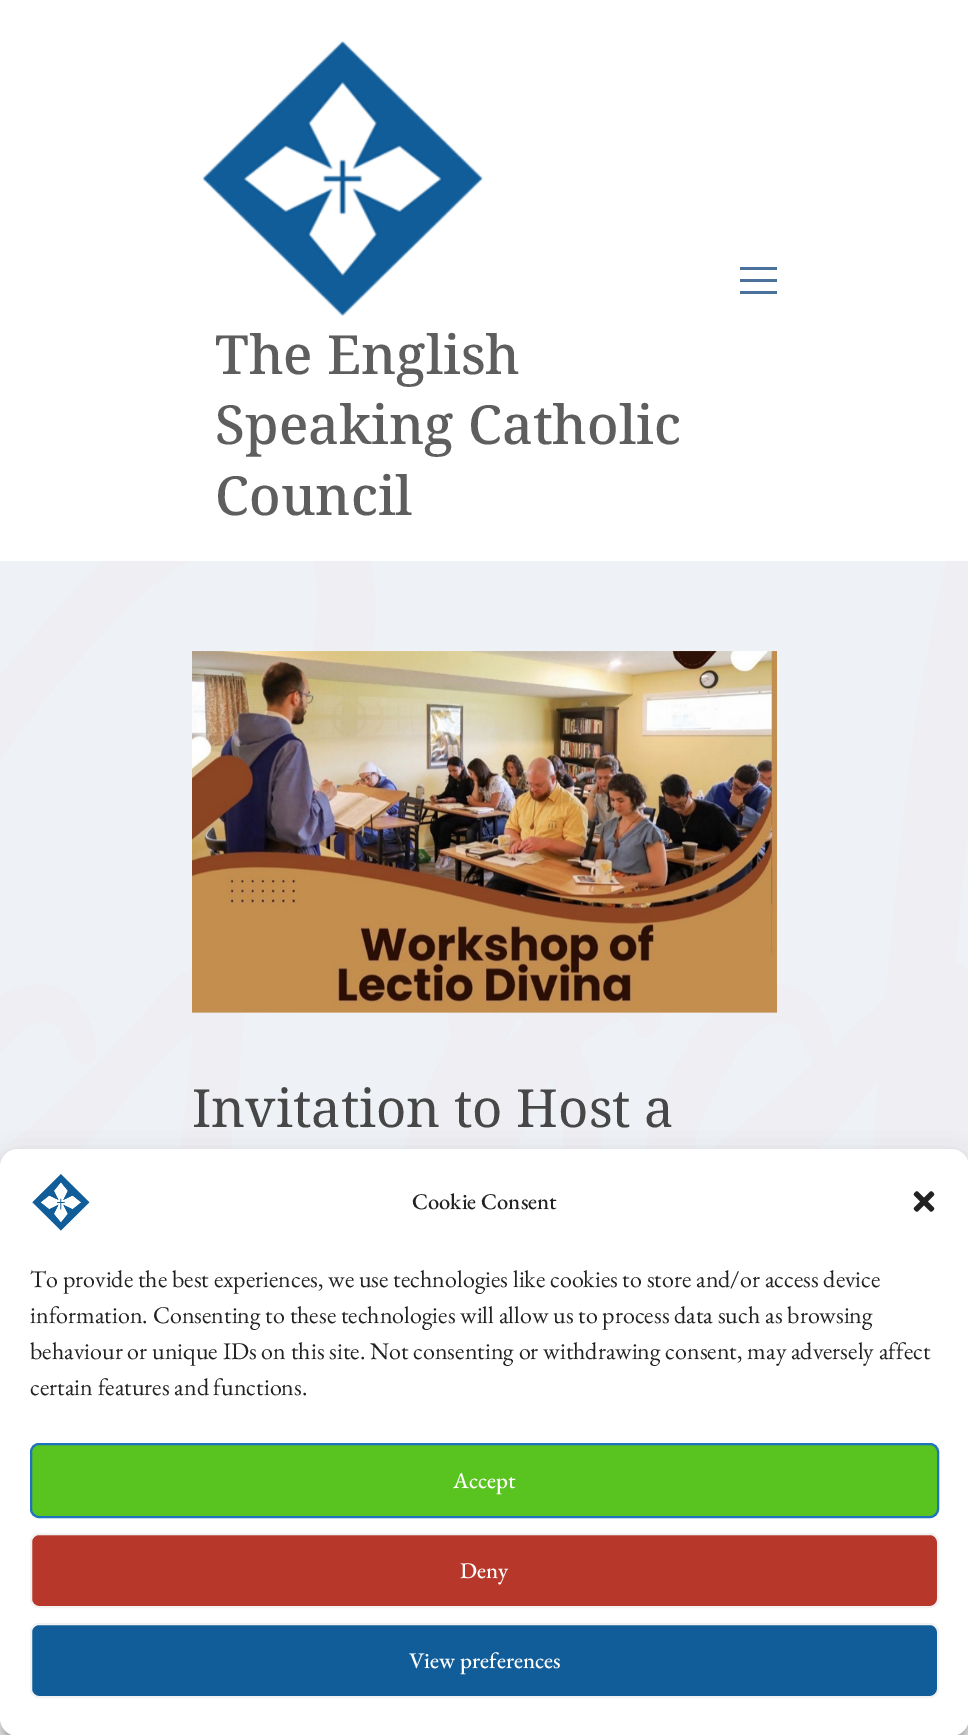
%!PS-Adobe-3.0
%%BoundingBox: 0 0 968 1735
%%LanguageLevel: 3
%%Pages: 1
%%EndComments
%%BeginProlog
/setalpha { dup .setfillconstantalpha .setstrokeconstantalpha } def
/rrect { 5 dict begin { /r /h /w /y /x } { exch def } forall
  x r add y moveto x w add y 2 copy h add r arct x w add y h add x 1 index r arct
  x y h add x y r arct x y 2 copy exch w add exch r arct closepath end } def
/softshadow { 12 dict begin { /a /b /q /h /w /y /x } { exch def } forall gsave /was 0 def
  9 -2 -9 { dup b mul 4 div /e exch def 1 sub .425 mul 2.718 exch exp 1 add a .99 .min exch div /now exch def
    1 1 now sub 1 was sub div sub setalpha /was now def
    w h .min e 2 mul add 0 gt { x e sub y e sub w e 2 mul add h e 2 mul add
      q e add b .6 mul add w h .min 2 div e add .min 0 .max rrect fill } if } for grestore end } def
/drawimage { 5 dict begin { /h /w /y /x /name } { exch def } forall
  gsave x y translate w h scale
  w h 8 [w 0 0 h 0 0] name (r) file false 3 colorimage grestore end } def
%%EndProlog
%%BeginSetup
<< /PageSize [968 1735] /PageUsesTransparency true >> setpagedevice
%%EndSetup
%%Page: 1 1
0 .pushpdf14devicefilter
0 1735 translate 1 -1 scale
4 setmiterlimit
1 setgray
0 0 968 1735 rectfill
0.29 0.443 0.6 setrgbcolor
740 267 37 3 rectfill
740 279 37 3 rectfill
740 291 37 3 rectfill
(images/1.raw) 202 41 281 275 drawimage
0.933 0.949 0.965 setrgbcolor
0 561 968 1158 rectfill
(images/2.raw) 0 561 968 606 drawimage
(images/3.raw) 192 651 585 362 drawimage
0 setgray
0 1158 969 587 18 4.5 0.23 softshadow
0 1164 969 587 18 15 0.19 softshadow
1 setgray
0 1149 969 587 18 rrect fill
(images/4.raw) 32 1174 58 57 drawimage
(images/5.raw) 913 1191 22 21 drawimage
0.349 0.769 0.122 setrgbcolor
31 1444 907 73 8 rrect gsave fill grestore
0.118 0.451 0.745 setrgbcolor
2 setlinewidth
stroke
0.718 0.22 0.165 setrgbcolor
31 1534 907 73 8 rrect gsave fill grestore
0.949 setgray
stroke
0.067 0.365 0.6 setrgbcolor
31 1624 907 73 8 rrect gsave fill grestore
0.949 setgray
stroke
/NotoSerif-Medium [54 0 0 -54 0 0] selectfont
0.369 setgray
215 374 moveto (The English) show
215 444 moveto (Speaking Catholic) show
215 515 moveto (Council) show
/NotoSerif-Regular [52.6 0 0 -52.6 0 0] selectfont
0.278 setgray
192 1127 moveto (Invitation to Host a) show
/EBGaramond-Medium [22.5 0 0 -22.5 0 0] selectfont
0.133 setgray
412 1209 moveto (Cookie Consent) show
/EBGaramond-Regular [24 0 0 -24 0 0] selectfont
30 1287 moveto (To provide the best experiences, we use technologies like cookies to store and/or access device) show
30 1323 moveto (information. Consenting to these technologies will allow us to process data such as browsing) show
30 1359 moveto (behaviour or unique IDs on this site. Not consenting or withdrawing consent, may adversely affect) show
30 1395 moveto (certain features and functions.) show
/EBGaramond-Medium [22.5 0 0 -22.5 0 0] selectfont
1 setgray
453 1488 moveto (Accept) show
460 1578 moveto (Deny) show
409 1668 moveto (View preferences) show
.poppdf14devicefilter showpage
%%EOF
